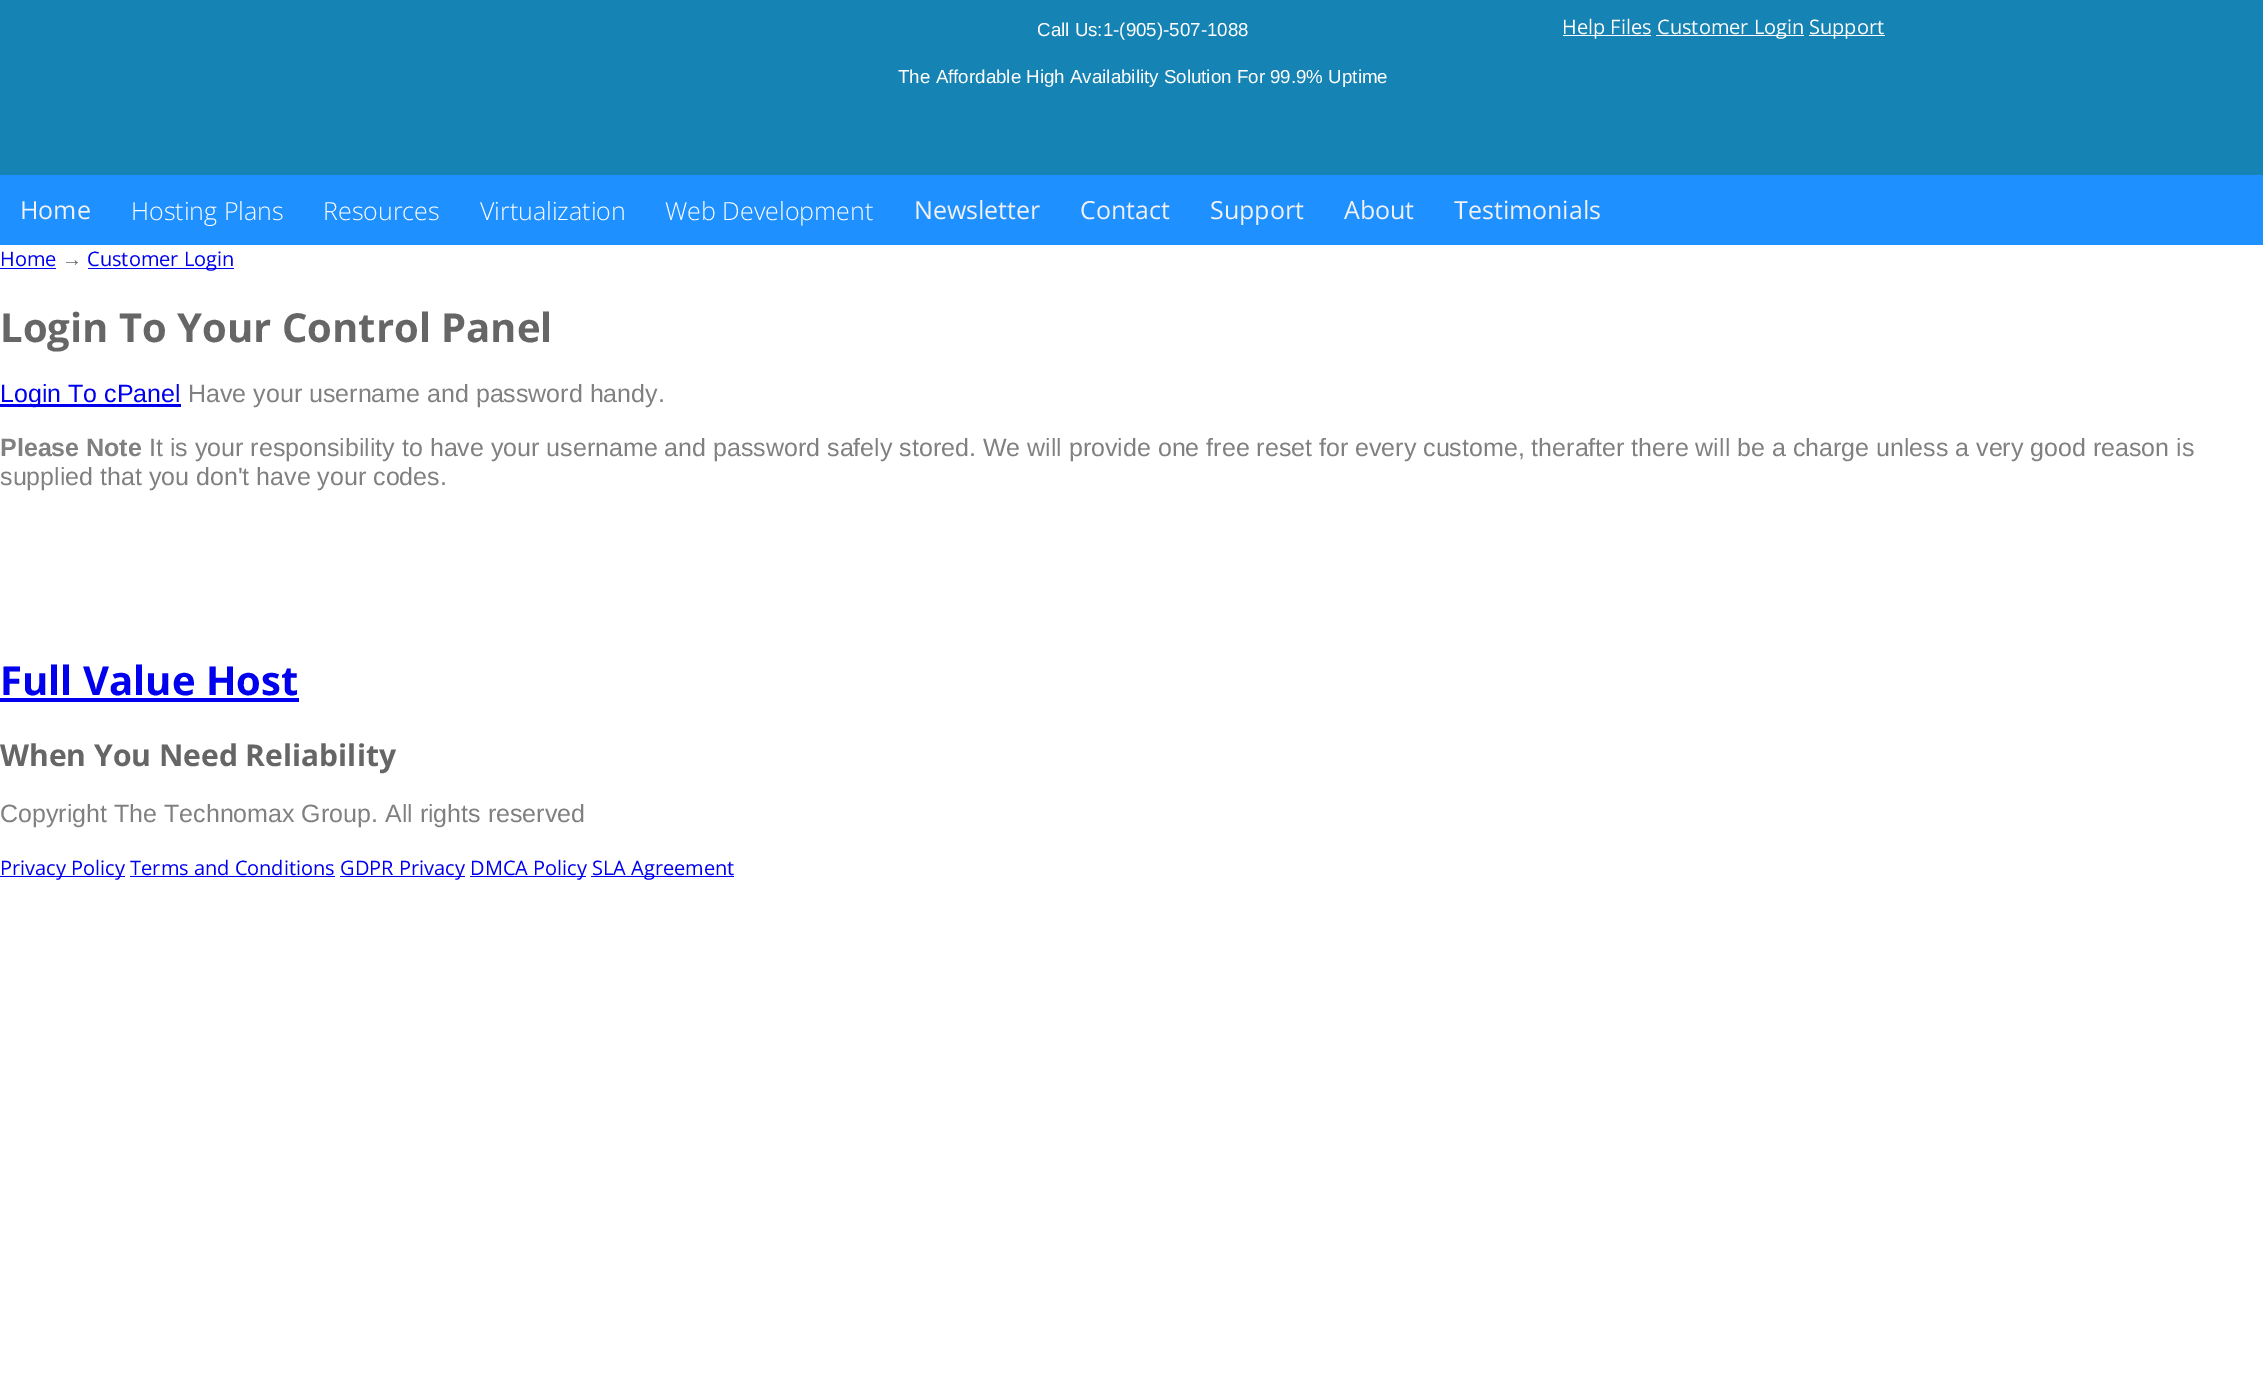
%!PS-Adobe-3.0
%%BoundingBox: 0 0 2263 1382
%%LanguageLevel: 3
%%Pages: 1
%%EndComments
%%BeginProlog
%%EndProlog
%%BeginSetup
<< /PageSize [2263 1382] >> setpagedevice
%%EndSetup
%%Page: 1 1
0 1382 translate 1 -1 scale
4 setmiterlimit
1 setgray
0 0 2263 1382 rectfill
0.082 0.514 0.702 setrgbcolor
0 0 2263 175 rectfill
1 setgray
1563 35 88 1 rectfill
1656 35 148 1 rectfill
1809 35 76 1 rectfill
0.118 0.565 1 setrgbcolor
0 175 2263 70 rectfill
0 0 0.933 setrgbcolor
0 268 56 1 rectfill
88 268 146 1 rectfill
0 404 181 3 rectfill
0 698 299 4 rectfill
0 876 125 1 rectfill
340 876 125 1 rectfill
470 876 116 1 rectfill
591 876 143 1 rectfill
130 876 205 1 rectfill
/LiberationSans-Regular [18.75 0 0 -18.75 0 0] selectfont
1 setgray
1037 36 moveto (Call Us:1-\(905\)-507-1088) show
898 83 moveto (The Affordable High Availability Solution For 99.9% Uptime) show
/OpenSans-Regular [20 0 0 -20 0 0] selectfont
1562 34 moveto (Help Files) show
1657 34 moveto (Customer Login) show
1809 34 moveto (Support) show
/OpenSans-Regular [25 0 0 -25 0 0] selectfont
0.949 setgray
20 219 moveto (Home) show
/OpenSans-Light [25 0 0 -25 0 0] selectfont
1 setgray
131 220 moveto (Hosting Plans) show
323 220 moveto (Resources) show
480 220 moveto (Virtualization) show
665 220 moveto (Web Development) show
/OpenSans-Regular [25 0 0 -25 0 0] selectfont
0.949 setgray
914 219 moveto (Newsletter) show
1080 219 moveto (Contact) show
1210 219 moveto (Support) show
1344 219 moveto (About) show
1454 219 moveto (Testimonials) show
/OpenSans-Regular [20 0 0 -20 0 0] selectfont
0 0 0.933 setrgbcolor
0 266 moveto (Home) show
/LiberationSans-Regular [20 0 0 -20 0 0] selectfont
0.4 setgray
62 266 moveto (→) show
/OpenSans-Regular [20 0 0 -20 0 0] selectfont
0 0 0.933 setrgbcolor
87 266 moveto (Customer Login) show
/OpenSans-Bold [40 0 0 -40 0 0] selectfont
0.4 setgray
0 342 moveto (Login To Your Control Panel) show
/LiberationSans-Regular [25 0 0 -25 0 0] selectfont
0 0 0.933 setrgbcolor
0 402 moveto (Login To cPanel) show
0.502 setgray
188 402 moveto (Have your username and password handy.) show
/LiberationSans-Bold [25 0 0 -25 0 0] selectfont
0 456 moveto (Please Note) show
/LiberationSans-Regular [25 0 0 -25 0 0] selectfont
149 456 moveto (It is your responsibility to have your username and password safely stored. We will provide one free reset for every custome, therafter there will be a charge unless a very good reason is) show
0 485 moveto (supplied that you don't have your codes.) show
/OpenSans-Bold [40 0 0 -40 0 0] selectfont
0 0 0.933 setrgbcolor
0 695 moveto (Full Value Host) show
/OpenSans-Bold [30 0 0 -30 0 0] selectfont
0.4 setgray
0 766 moveto (When You Need Reliability) show
/LiberationSans-Regular [25 0 0 -25 0 0] selectfont
0.502 setgray
0 822 moveto (Copyright The Technomax Group. All rights reserved) show
/OpenSans-Regular [20 0 0 -20 0 0] selectfont
0 0 0.933 setrgbcolor
0 875 moveto (Privacy Policy Terms and Conditions) show
340 875 moveto (GDPR Privacy) show
470 875 moveto (DMCA Policy) show
592 875 moveto (SLA Agreement) show
showpage
%%EOF
